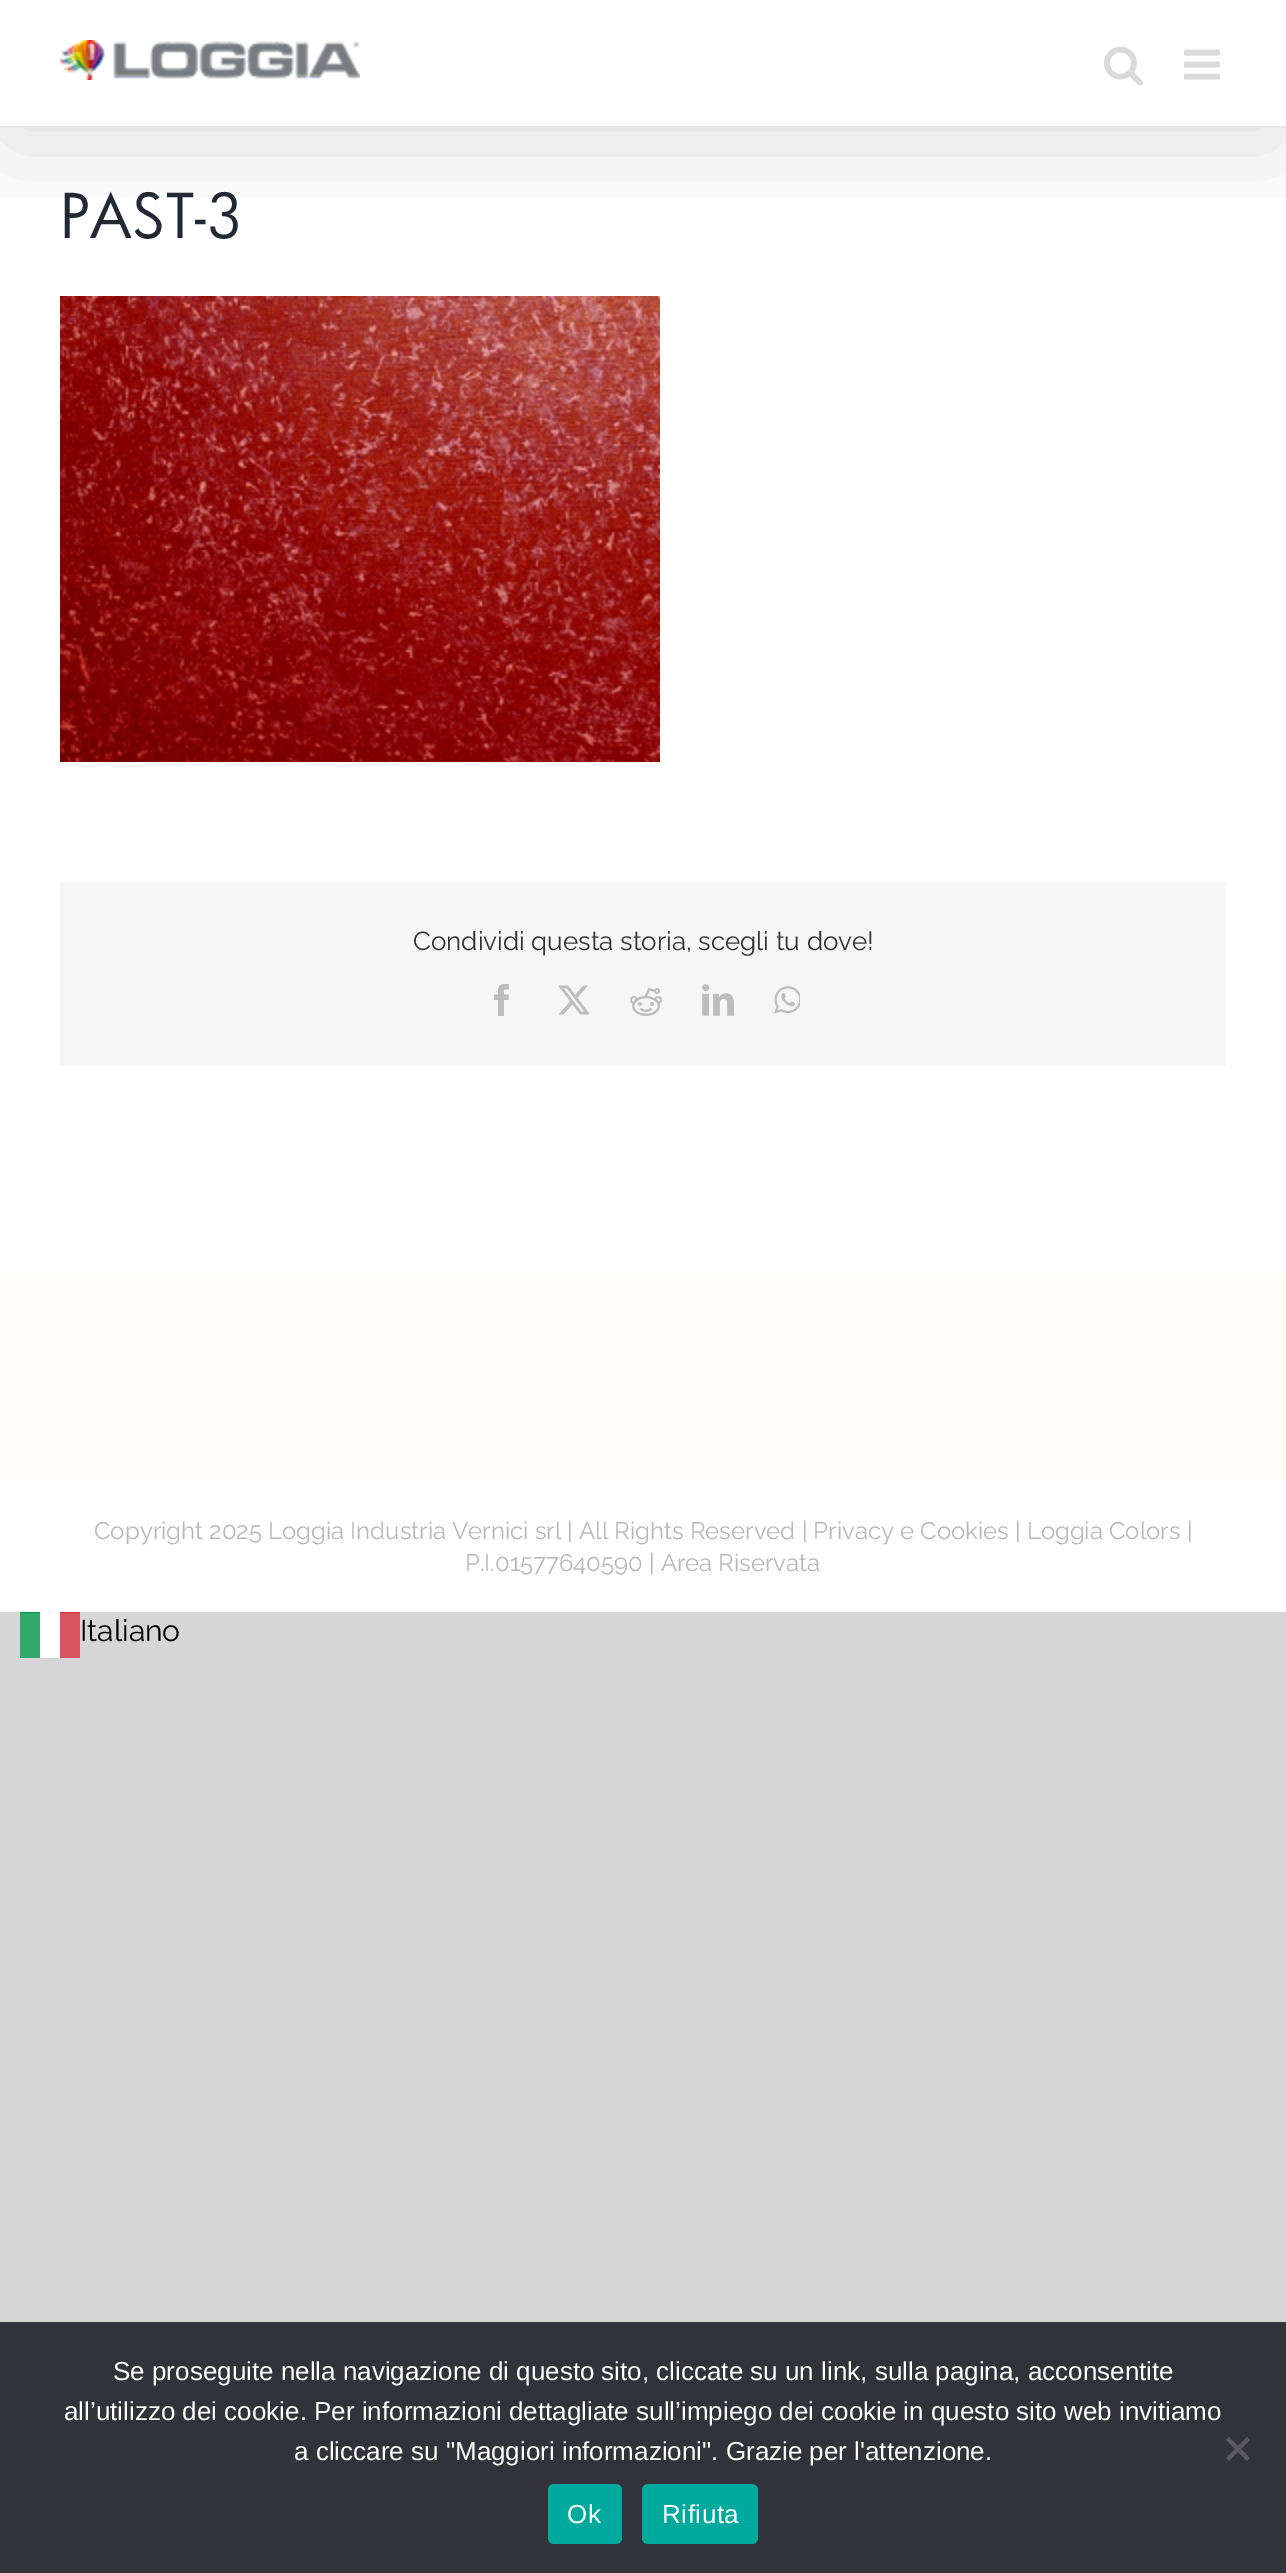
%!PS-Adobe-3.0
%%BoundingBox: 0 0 1286 2573
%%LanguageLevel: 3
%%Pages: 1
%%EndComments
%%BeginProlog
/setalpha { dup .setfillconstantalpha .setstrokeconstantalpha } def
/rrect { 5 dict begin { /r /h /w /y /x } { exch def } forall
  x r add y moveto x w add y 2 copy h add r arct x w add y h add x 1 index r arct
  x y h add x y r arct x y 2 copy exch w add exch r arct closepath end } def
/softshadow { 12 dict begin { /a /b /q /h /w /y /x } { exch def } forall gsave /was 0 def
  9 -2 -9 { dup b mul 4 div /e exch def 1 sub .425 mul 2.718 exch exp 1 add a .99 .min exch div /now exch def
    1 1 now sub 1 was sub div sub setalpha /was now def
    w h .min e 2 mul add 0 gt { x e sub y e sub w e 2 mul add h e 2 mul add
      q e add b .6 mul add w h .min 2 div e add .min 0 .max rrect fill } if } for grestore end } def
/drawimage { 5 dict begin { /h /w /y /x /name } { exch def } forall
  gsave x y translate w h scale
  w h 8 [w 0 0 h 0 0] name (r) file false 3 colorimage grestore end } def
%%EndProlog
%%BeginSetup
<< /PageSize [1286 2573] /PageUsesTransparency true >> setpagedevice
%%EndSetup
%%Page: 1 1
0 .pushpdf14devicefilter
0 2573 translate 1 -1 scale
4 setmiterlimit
0.843 0.839 0.839 setrgbcolor
0 0 1286 2573 rectfill
1 setgray
0 0 1286 1612 rectfill
gsave
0 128 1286 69 rectclip
0 setgray
4 24 1278 120 0 50 0.14 softshadow
grestore
0.898 setgray
0 126 1286 2 rectfill
(images/1.raw) 60 40 300 40 drawimage
(images/2.raw) 1104 46 39 40 drawimage
(images/3.raw) 1184 49 36 31 drawimage
(images/4.raw) 60 296 600 466 drawimage
0.965 setgray
60 882 1166 184 rectfill
(images/5.raw) 494 984 15 32 drawimage
(images/6.raw) 558 985 32 30 drawimage
(images/7.raw) 630 988 32 28 drawimage
(images/8.raw) 702 984 32 32 drawimage
(images/9.raw) 774 986 26 28 drawimage
1 0.988 0.988 setrgbcolor
0 1276 1286 204 rectfill
1 setgray
40 1612 20 46 rectfill
0 0.573 0.275 setrgbcolor
20 1612 20 1 rectfill
0.2 0.659 0.42 setrgbcolor
20 1613 20 45 rectfill
0.808 0.169 0.216 setrgbcolor
60 1612 20 1 rectfill
0.847 0.333 0.373 setrgbcolor
60 1613 20 45 rectfill
0.196 0.196 0.227 setrgbcolor
0 2322 1286 251 rectfill
0.349 0.349 0.365 setrgbcolor
newpath 1247 2437 moveto 1250 2440 lineto 1229 2461 lineto 1226 2458 lineto closepath fill
newpath 1226 2440 moveto 1229 2437 lineto 1250 2458 lineto 1247 2461 lineto closepath fill
0 0.663 0.616 setrgbcolor
548 2484 74 60 6 rrect fill
642 2484 116 60 6 rrect fill
/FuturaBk-Regular [60 0 0 -60 0 0] selectfont
0.129 0.161 0.204 setrgbcolor
60 238 moveto (PAST-3) show
/Raleway-Regular [26 0 0 -26 0 0] selectfont
0.2 setgray
413 950 moveto (Condividi questa storia, scegli tu dove!) show
/Raleway-Regular [24 0 0 -24 0 0] selectfont
0.718 setgray
94 1539 moveto (Copyright 2025 Loggia Industria Vernici srl | All Rights Reserved | Privacy e Cookies | Loggia Colors |) show
465 1571 moveto (P.I.01577640590 | Area Riservata) show
/Raleway-Regular [30 0 0 -30 0 0] selectfont
0 setgray
80 1641 moveto (Italiano) show
/LiberationSans-Regular [26 0 0 -26 0 0] selectfont
1 setgray
113 2380 moveto (Se proseguite nella navigazione di questo sito, cliccate su un link, sulla pagina, acconsentite) show
64 2420 moveto (all’utilizzo dei cookie. Per informazioni dettagliate sull’impiego dei cookie in questo sito web invitiamo) show
294 2460 moveto (a cliccare su "Maggiori informazioni". Grazie per l'attenzione.) show
567 2523 moveto 0.5 0 (Ok) ashow
662 2523 moveto 0.5 0 (Rifiuta) ashow
.poppdf14devicefilter showpage
%%EOF
